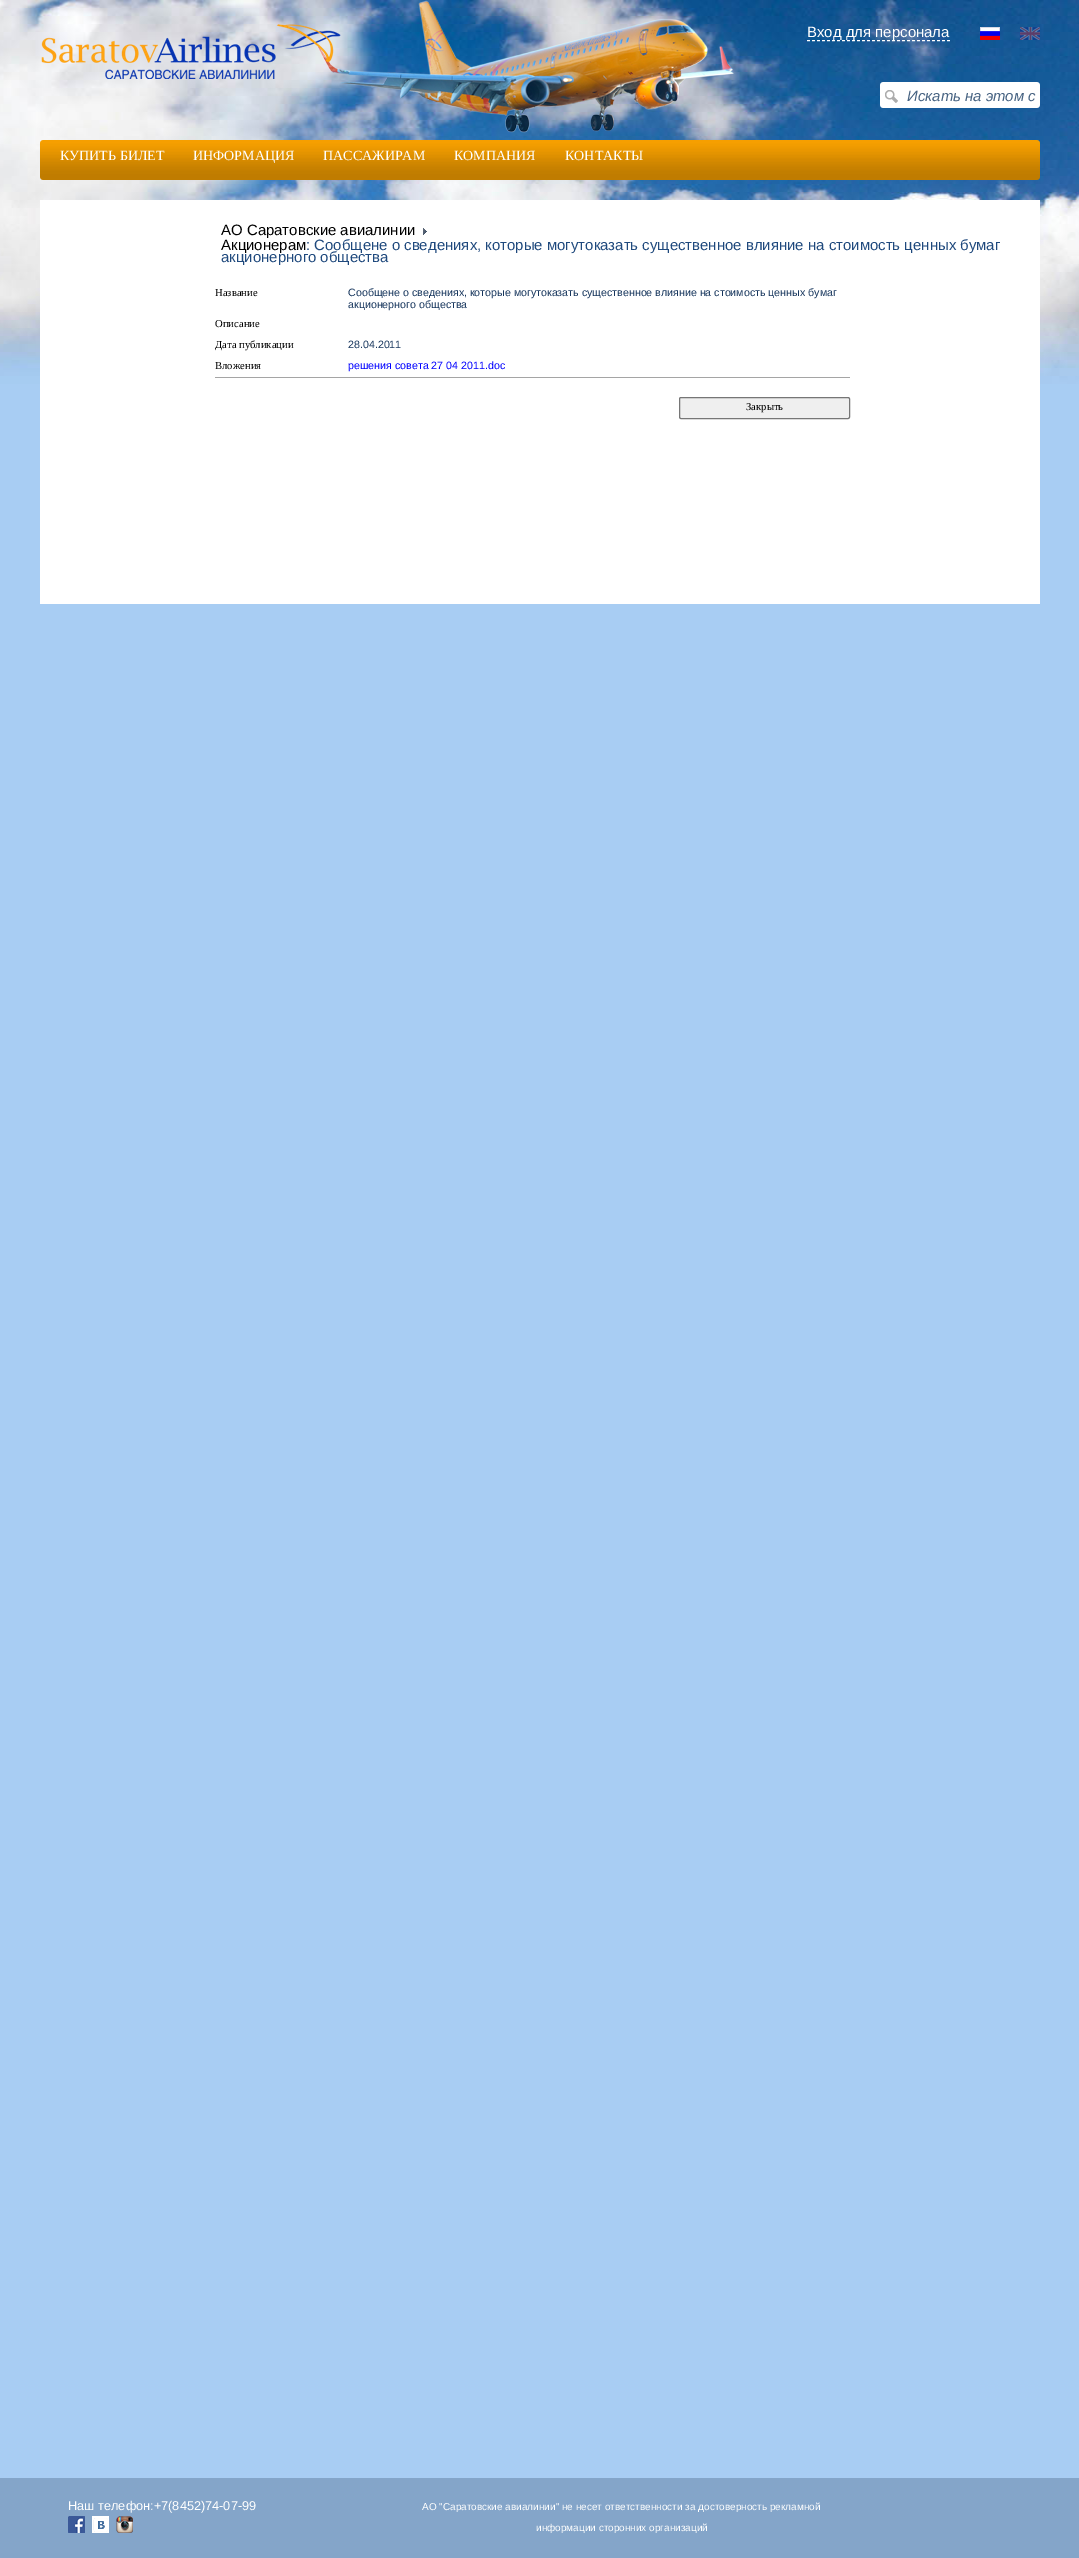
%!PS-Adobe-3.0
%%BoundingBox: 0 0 1079 2558
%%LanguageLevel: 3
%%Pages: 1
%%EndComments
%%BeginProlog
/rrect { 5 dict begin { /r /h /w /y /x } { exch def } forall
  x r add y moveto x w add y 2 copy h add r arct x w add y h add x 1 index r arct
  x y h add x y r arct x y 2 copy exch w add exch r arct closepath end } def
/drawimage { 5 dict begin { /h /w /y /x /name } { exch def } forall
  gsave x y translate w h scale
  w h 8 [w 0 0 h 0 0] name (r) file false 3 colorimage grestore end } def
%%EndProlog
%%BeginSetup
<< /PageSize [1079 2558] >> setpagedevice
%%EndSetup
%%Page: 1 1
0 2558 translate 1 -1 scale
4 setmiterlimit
0.659 0.804 0.953 setrgbcolor
0 0 1079 2558 rectfill
(images/1.raw) 0 0 1079 384 drawimage
(images/2.raw) 317 0 417 133 drawimage
(images/3.raw) 41 24 300 55 drawimage
1 setgray
[3 2] 0 setdash
newpath 807 40.5 moveto 950 40.5 lineto stroke
(images/4.raw) 980 27 20 13 drawimage
(images/5.raw) 1020 27 20 13 drawimage
(images/6.raw) 880 82 160 26 drawimage
(images/7.raw) 40 140 1000 40 drawimage
40 200 1000 5 rectfill
40 205 1000 399 rectfill
(images/8.raw) 423 228 4 7 drawimage
0.647 setgray
215 377 635 1 rectfill
0.937 setgray
679.5 397.5 170 21 1.5 rrect gsave fill grestore
0.463 setgray
[] 0 setdash
stroke
0.518 0.647 0.788 setrgbcolor
0 2478 1079 80 rectfill
(images/9.raw) 68 2516 17 17 drawimage
(images/10.raw) 92 2516 17 17 drawimage
(images/11.raw) 116 2516 17 17 drawimage
/LiberationSans-Regular [14.95 0 0 -14.95 0 0] selectfont
1 setgray
807 37 moveto (Вход для персонала) show
/LiberationSans-Italic [14.95 0 0 -14.95 0 0] selectfont
0.278 0.388 0.51 setrgbcolor
907 101 moveto (Искать на этом с) show
/LiberationSerif-Regular [14 0 0 -14 0 0] selectfont
1 setgray
60 160 moveto (КУПИТЬ БИЛЕТ) show
193 160 moveto (ИНФОРМАЦИЯ) show
323 160 moveto (ПАССАЖИРАМ) show
454 160 moveto (КОМПАНИЯ) show
565 160 moveto (КОНТАКТЫ) show
/LiberationSans-Regular [14.95 0 0 -14.95 0 0] selectfont
0 setgray
221 235 moveto (АО Саратовские авиалинии) show
221 250 moveto (Акционерам) show
0.122 0.286 0.49 setrgbcolor
306 250 moveto (: Сообщене о сведениях, которые могутоказать существенное влияние на стоимость ценных бумаг) show
221 262 moveto (акционерного общества) show
/LiberationSerif-Regular [10.65 0 0 -10.65 0 0] selectfont
0 setgray
215 296 moveto (Название) show
/LiberationSans-Regular [10.65 0 0 -10.65 0 0] selectfont
0.09 0.212 0.365 setrgbcolor
348 296 moveto (Сообщене о сведениях, которые могутоказать существенное влияние на стоимость ценных бумаг) show
348 308 moveto (акционерного общества) show
/LiberationSerif-Regular [10.65 0 0 -10.65 0 0] selectfont
0 setgray
215 327 moveto (Описание) show
215 348 moveto (Дата публикации) show
/LiberationSans-Regular [10.65 0 0 -10.65 0 0] selectfont
0.09 0.212 0.365 setrgbcolor
348 348 moveto (28.04.2011) show
/LiberationSerif-Regular [10.65 0 0 -10.65 0 0] selectfont
0 setgray
215 369 moveto (Вложения) show
/LiberationSans-Regular [10.65 0 0 -10.65 0 0] selectfont
0 0 1 setrgbcolor
348 369 moveto (решения совета 27 04 2011.doc) show
/LiberationSerif-Regular [10.65 0 0 -10.65 0 0] selectfont
0 setgray
746 410 moveto (Закрыть) show
/LiberationSans-Regular [12.75 0 0 -12.75 0 0] selectfont
1 setgray
68 2510 moveto (Наш телефон:+7\(8452\)74-07-99) show
/LiberationSans-Regular [10 0 0 -10 0 0] selectfont
422 2510 moveto (АО "Саратовские авиалинии" не несет ответственности за достоверность рекламной) show
536 2531 moveto (информации сторонних организаций) show
showpage
%%EOF
